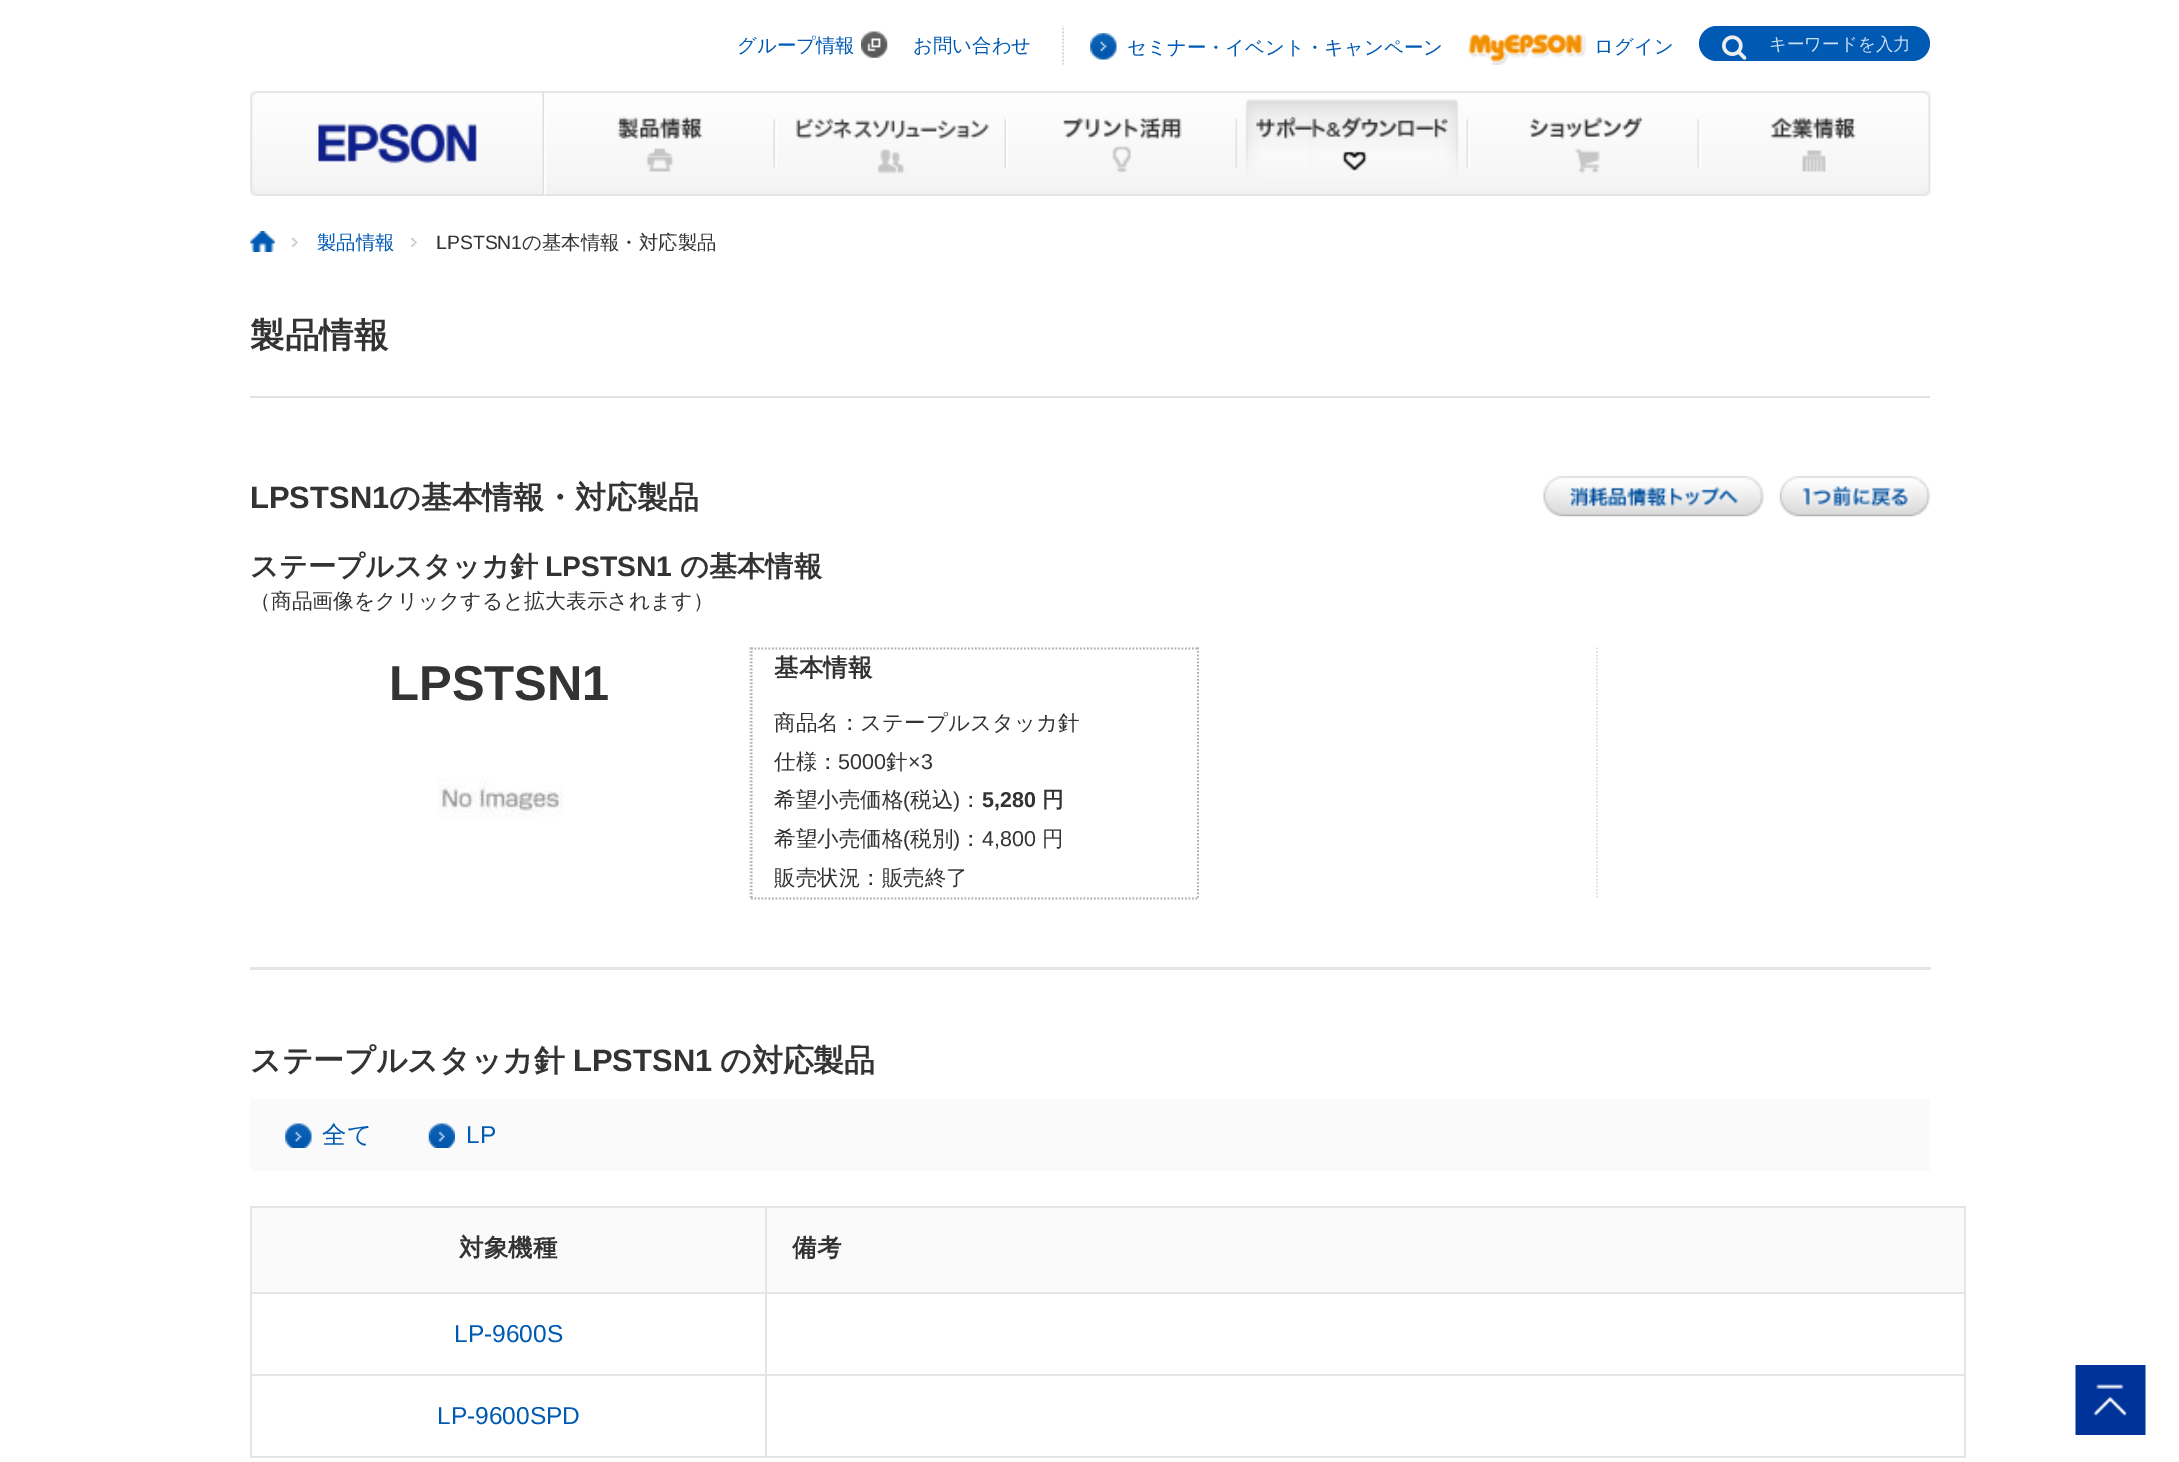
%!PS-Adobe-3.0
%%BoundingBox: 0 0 2179 1462
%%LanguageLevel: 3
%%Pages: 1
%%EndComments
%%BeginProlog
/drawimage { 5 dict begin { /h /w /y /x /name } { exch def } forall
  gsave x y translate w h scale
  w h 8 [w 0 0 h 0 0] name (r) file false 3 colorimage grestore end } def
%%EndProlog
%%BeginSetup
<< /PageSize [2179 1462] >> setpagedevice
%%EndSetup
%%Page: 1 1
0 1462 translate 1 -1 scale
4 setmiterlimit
1 setgray
0 0 2179 1462 rectfill
(images/1.raw) 861 31 27 27 drawimage
(images/2.raw) 1062 26 2 39 drawimage
(images/3.raw) 1090 33 27 27 drawimage
(images/4.raw) 1468 33 118 32 drawimage
0 0.353 0.706 setrgbcolor
newpath 1716.5 26 moveto 1764 26 lineto 1764 61 lineto 1716.5 61 lineto 1707 61 1699 53 1699 43.5 curveto 1699 34 1707 26 1716.5 26 curveto closepath fill
(images/5.raw) 1722 35 25 25 drawimage
newpath 1764 26 moveto 1912.5 26 lineto 1922 26 1930 34 1930 43.5 curveto 1930 53 1922 61 1912.5 61 curveto 1764 61 lineto closepath fill
(images/6.raw) 250 91 295 105 drawimage
(images/7.raw) 544 91 232 105 drawimage
(images/8.raw) 775 91 232 105 drawimage
(images/9.raw) 1006 91 232 105 drawimage
(images/10.raw) 1237 91 232 105 drawimage
(images/11.raw) 1468 91 232 105 drawimage
(images/12.raw) 1699 91 232 105 drawimage
(images/13.raw) 292 238 6 9 drawimage
(images/14.raw) 250 231 25 21 drawimage
(images/13.raw) 411 238 6 9 drawimage
0.89 setgray
250 396 1680 2 rectfill
0.898 setgray
250 967 1681 3 rectfill
(images/15.raw) 1543 476 221 41 drawimage
(images/16.raw) 1779 476 152 41 drawimage
0.886 setgray
1.8 setlinewidth
[1.75 1.75] 0 setdash
newpath 750 647.5 moveto 750 899.5 lineto stroke
(images/17.raw) 438 777 126 42 drawimage
0.682 setgray
newpath 751 648.5 moveto 1199 648.5 lineto stroke
newpath 1198 647.5 moveto 1198 899.5 lineto stroke
newpath 751 898.5 moveto 1199 898.5 lineto stroke
newpath 751.5 647.5 moveto 751.5 899.5 lineto stroke
0.886 setgray
newpath 1597 647.5 moveto 1597 899.5 lineto stroke
0.98 setgray
250 1099 1680 72 rectfill
(images/18.raw) 285 1123 27 25 drawimage
(images/19.raw) 428 1123 27 25 drawimage
0.898 setgray
250 1206 1715 2 rectfill
250 1206 2 252 rectfill
0.98 setgray
252 1208 513 84 rectfill
0.898 setgray
1964 1206 2 252 rectfill
765 1456 1200 2 rectfill
765 1374 2 84 rectfill
765 1374 1200 2 rectfill
765 1292 2 84 rectfill
765 1292 1200 2 rectfill
765 1206 2 87 rectfill
250 1292 517 2 rectfill
0.98 setgray
767 1208 1197 84 rectfill
0.898 setgray
250 1374 517 2 rectfill
250 1456 517 2 rectfill
(images/20.raw) 2075 1365 71 70 drawimage
/WenQuanYiZenHei-Medium [19.4 0 0 -19.4 0 0] selectfont
0 0.353 0.706 setrgbcolor
737 52 moveto (グループ情報) show
913 52 moveto (お問い合わせ) show
1127 54 moveto (セミナー・イベント・キャンペーン) show
1594 53 moveto (ログイン) show
/WenQuanYiZenHei-Medium [17.5 0 0 -17.5 0 0] selectfont
0.8 0.871 0.941 setrgbcolor
1769 50 moveto (キーワードを入力) show
/WenQuanYiZenHei-Medium [19.4 0 0 -19.4 0 0] selectfont
0 0.353 0.706 setrgbcolor
317 249 moveto (製品情報) show
/LiberationSans-Regular [19.4 0 0 -19.4 0 0] selectfont
0.2 setgray
436 249 moveto (LPSTSN1) show
/WenQuanYiZenHei-Medium [19.4 0 0 -19.4 0 0] selectfont
522 249 moveto (の基本情報・対応製品) show
/WenQuanYiZenHei-Bold [34.5 0 0 -34.5 0 0] selectfont
250 347 moveto (製品情報) show
/LiberationSans-Bold [30.9 0 0 -30.9 0 0] selectfont
250 508 moveto (LPSTSN1) show
/WenQuanYiZenHei-Bold [30.9 0 0 -30.9 0 0] selectfont
389 508 moveto (の基本情報・対応製品) show
/WenQuanYiZenHei-Bold [28.25 0 0 -28.25 0 0] selectfont
250 576 moveto (ステープルスタッカ針) show
/LiberationSans-Bold [28.25 0 0 -28.25 0 0] selectfont
545 576 moveto (LPSTSN1) show
/WenQuanYiZenHei-Bold [28.25 0 0 -28.25 0 0] selectfont
680 576 moveto (の基本情報) show
/WenQuanYiZenHei-Medium [20.8 0 0 -20.8 0 0] selectfont
250 608 moveto (（商品画像をクリックすると拡大表示されます）) show
/LiberationSans-Bold [49 0 0 -49 0 0] selectfont
389 700 moveto (LPSTSN1) show
/WenQuanYiZenHei-Bold [24.5 0 0 -24.5 0 0] selectfont
774 676 moveto (基本情報) show
/WenQuanYiZenHei-Medium [21.5 0 0 -21.5 0 0] selectfont
774 730 moveto (商品名：ステープルスタッカ針) show
774 769 moveto (仕様：) show
/LiberationSans-Regular [21.5 0 0 -21.5 0 0] selectfont
838 769 moveto (5000) show
/WenQuanYiZenHei-Medium [21.5 0 0 -21.5 0 0] selectfont
886 769 moveto (針) show
/LiberationSans-Regular [21.5 0 0 -21.5 0 0] selectfont
908 769 moveto (×3) show
/WenQuanYiZenHei-Medium [21.5 0 0 -21.5 0 0] selectfont
774 807 moveto (希望小売価格) show
/LiberationSans-Regular [21.5 0 0 -21.5 0 0] selectfont
903 807 moveto (\() show
/WenQuanYiZenHei-Medium [21.5 0 0 -21.5 0 0] selectfont
910 807 moveto (税込) show
/LiberationSans-Regular [21.5 0 0 -21.5 0 0] selectfont
953 807 moveto (\)) show
/WenQuanYiZenHei-Medium [21.5 0 0 -21.5 0 0] selectfont
960 807 moveto (：) show
/LiberationSans-Bold [21.5 0 0 -21.5 0 0] selectfont
982 807 moveto (5,280) show
/WenQuanYiZenHei-Bold [21.5 0 0 -21.5 0 0] selectfont
1042 807 moveto (円) show
/WenQuanYiZenHei-Medium [21.5 0 0 -21.5 0 0] selectfont
774 846 moveto (希望小売価格) show
/LiberationSans-Regular [21.5 0 0 -21.5 0 0] selectfont
903 846 moveto (\() show
/WenQuanYiZenHei-Medium [21.5 0 0 -21.5 0 0] selectfont
910 846 moveto (税別) show
/LiberationSans-Regular [21.5 0 0 -21.5 0 0] selectfont
953 846 moveto (\)) show
/WenQuanYiZenHei-Medium [21.5 0 0 -21.5 0 0] selectfont
960 846 moveto (：) show
/LiberationSans-Regular [21.5 0 0 -21.5 0 0] selectfont
982 846 moveto (4,800) show
/WenQuanYiZenHei-Medium [21.5 0 0 -21.5 0 0] selectfont
1042 846 moveto (円) show
774 885 moveto (販売状況：販売終了) show
/WenQuanYiZenHei-Bold [30.9 0 0 -30.9 0 0] selectfont
250 1071 moveto (ステープルスタッカ針) show
/LiberationSans-Bold [30.9 0 0 -30.9 0 0] selectfont
573 1071 moveto (LPSTSN1) show
/WenQuanYiZenHei-Bold [30.9 0 0 -30.9 0 0] selectfont
720 1071 moveto (の対応製品) show
/WenQuanYiZenHei-Medium [24.5 0 0 -24.5 0 0] selectfont
0 0.353 0.706 setrgbcolor
322 1143 moveto (全て) show
/LiberationSans-Regular [24.5 0 0 -24.5 0 0] selectfont
466 1143 moveto (LP) show
/WenQuanYiZenHei-Bold [24.5 0 0 -24.5 0 0] selectfont
0.2 setgray
459 1256 moveto (対象機種) show
792 1256 moveto (備考) show
/LiberationSans-Regular [24.5 0 0 -24.5 0 0] selectfont
0 0.353 0.706 setrgbcolor
454 1342 moveto (LP-9600S) show
437 1424 moveto (LP-9600SPD) show
showpage
%%EOF
